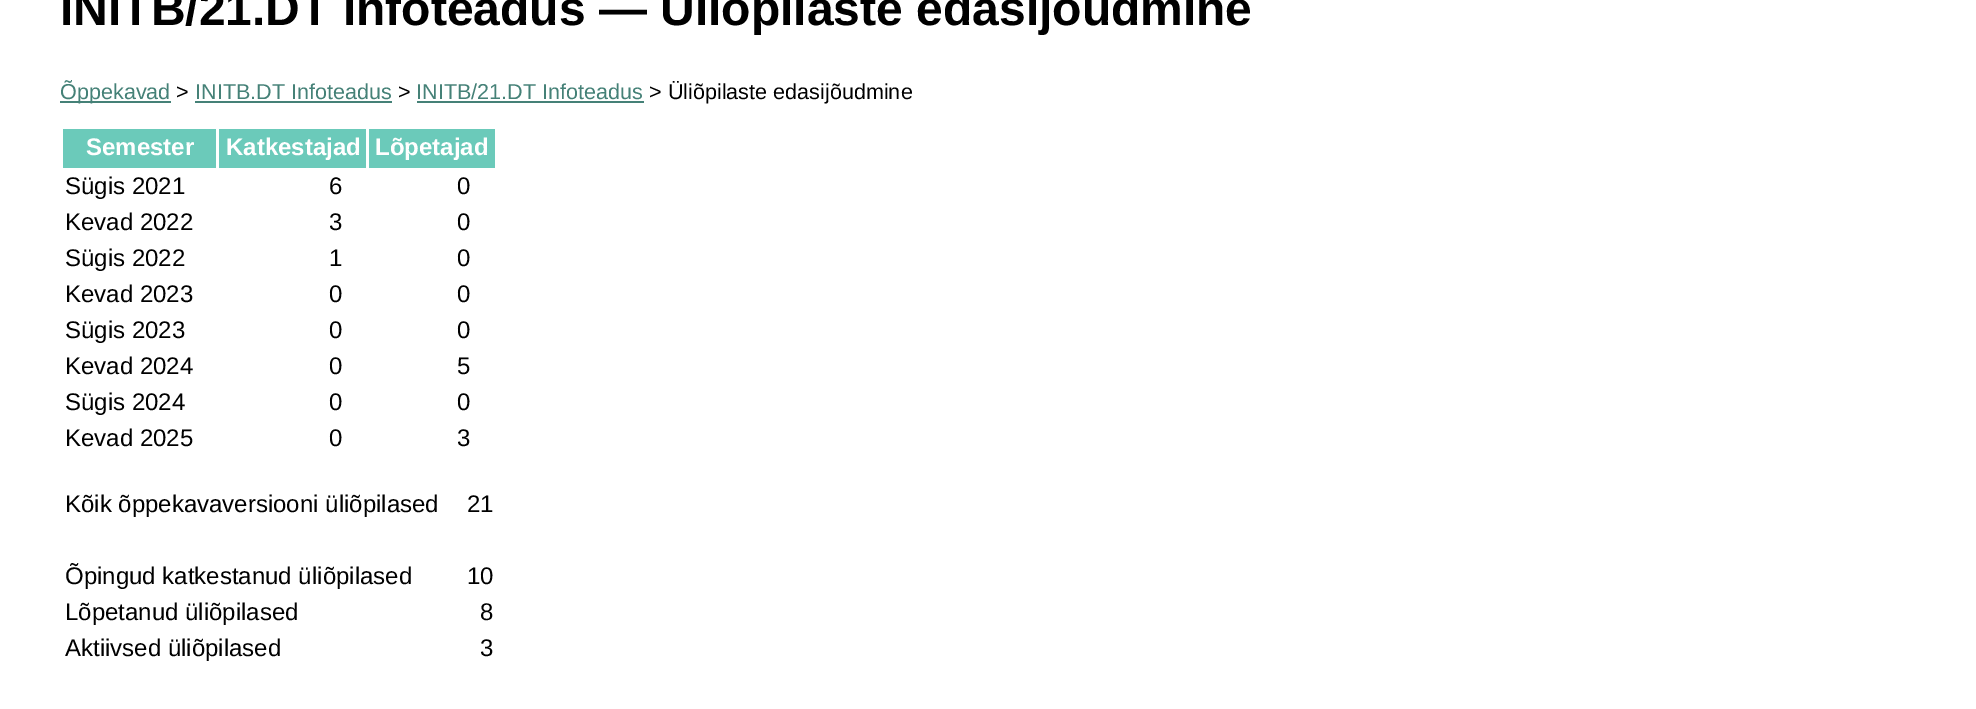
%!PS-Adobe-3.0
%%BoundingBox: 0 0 1976 709
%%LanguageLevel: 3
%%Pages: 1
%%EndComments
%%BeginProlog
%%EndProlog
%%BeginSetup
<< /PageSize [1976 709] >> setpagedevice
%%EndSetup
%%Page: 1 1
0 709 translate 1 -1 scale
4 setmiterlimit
1 setgray
0 0 1976 709 rectfill
0.271 0.506 0.467 setrgbcolor
60 101 111 2 rectfill
195 101 197 2 rectfill
417 101 227 2 rectfill
0.42 0.792 0.729 setrgbcolor
63 129 153 39 rectfill
219 129 147 39 rectfill
369 129 126 39 rectfill
/LiberationSans-Bold [48 0 0 -48 0 0] selectfont
0 setgray
60 25 moveto (INITB/21.DT Infoteadus — Üliõpilaste edasijõudmine) show
/LiberationSans-Regular [21.6 0 0 -21.6 0 0] selectfont
0.271 0.506 0.467 setrgbcolor
60 99 moveto (Õppekavad) show
0 setgray
176 99 moveto (>) show
0.271 0.506 0.467 setrgbcolor
195 99 moveto (INITB.DT Infoteadus) show
0 setgray
398 99 moveto (>) show
0.271 0.506 0.467 setrgbcolor
416 99 moveto (INITB/21.DT Infoteadus) show
0 setgray
649 99 moveto (> Üliõpilaste edasijõudmine) show
/LiberationSans-Bold [24 0 0 -24 0 0] selectfont
1 setgray
86 155 moveto (Semester) show
226 155 moveto (Katkestajad) show
375 155 moveto (Lõpetajad) show
/LiberationSans-Regular [24 0 0 -24 0 0] selectfont
0 setgray
65 194 moveto (Sügis 2021) show
329 194 moveto (6) show
457 194 moveto (0) show
65 230 moveto (Kevad 2022) show
329 230 moveto (3) show
457 230 moveto (0) show
65 266 moveto (Sügis 2022) show
329 266 moveto (1) show
457 266 moveto (0) show
65 302 moveto (Kevad 2023) show
329 302 moveto (0) show
457 302 moveto (0) show
65 338 moveto (Sügis 2023) show
329 338 moveto (0) show
457 338 moveto (0) show
65 374 moveto (Kevad 2024) show
329 374 moveto (0) show
457 374 moveto (5) show
65 410 moveto (Sügis 2024) show
329 410 moveto (0) show
457 410 moveto (0) show
65 446 moveto (Kevad 2025) show
329 446 moveto (0) show
457 446 moveto (3) show
65 512 moveto (Kõik õppekavaversiooni üliõpilased) show
467 512 moveto (21) show
65 584 moveto (Õpingud katkestanud üliõpilased) show
467 584 moveto (10) show
65 620 moveto (Lõpetanud üliõpilased) show
480 620 moveto (8) show
65 656 moveto (Aktiivsed üliõpilased) show
480 656 moveto (3) show
showpage
%%EOF
